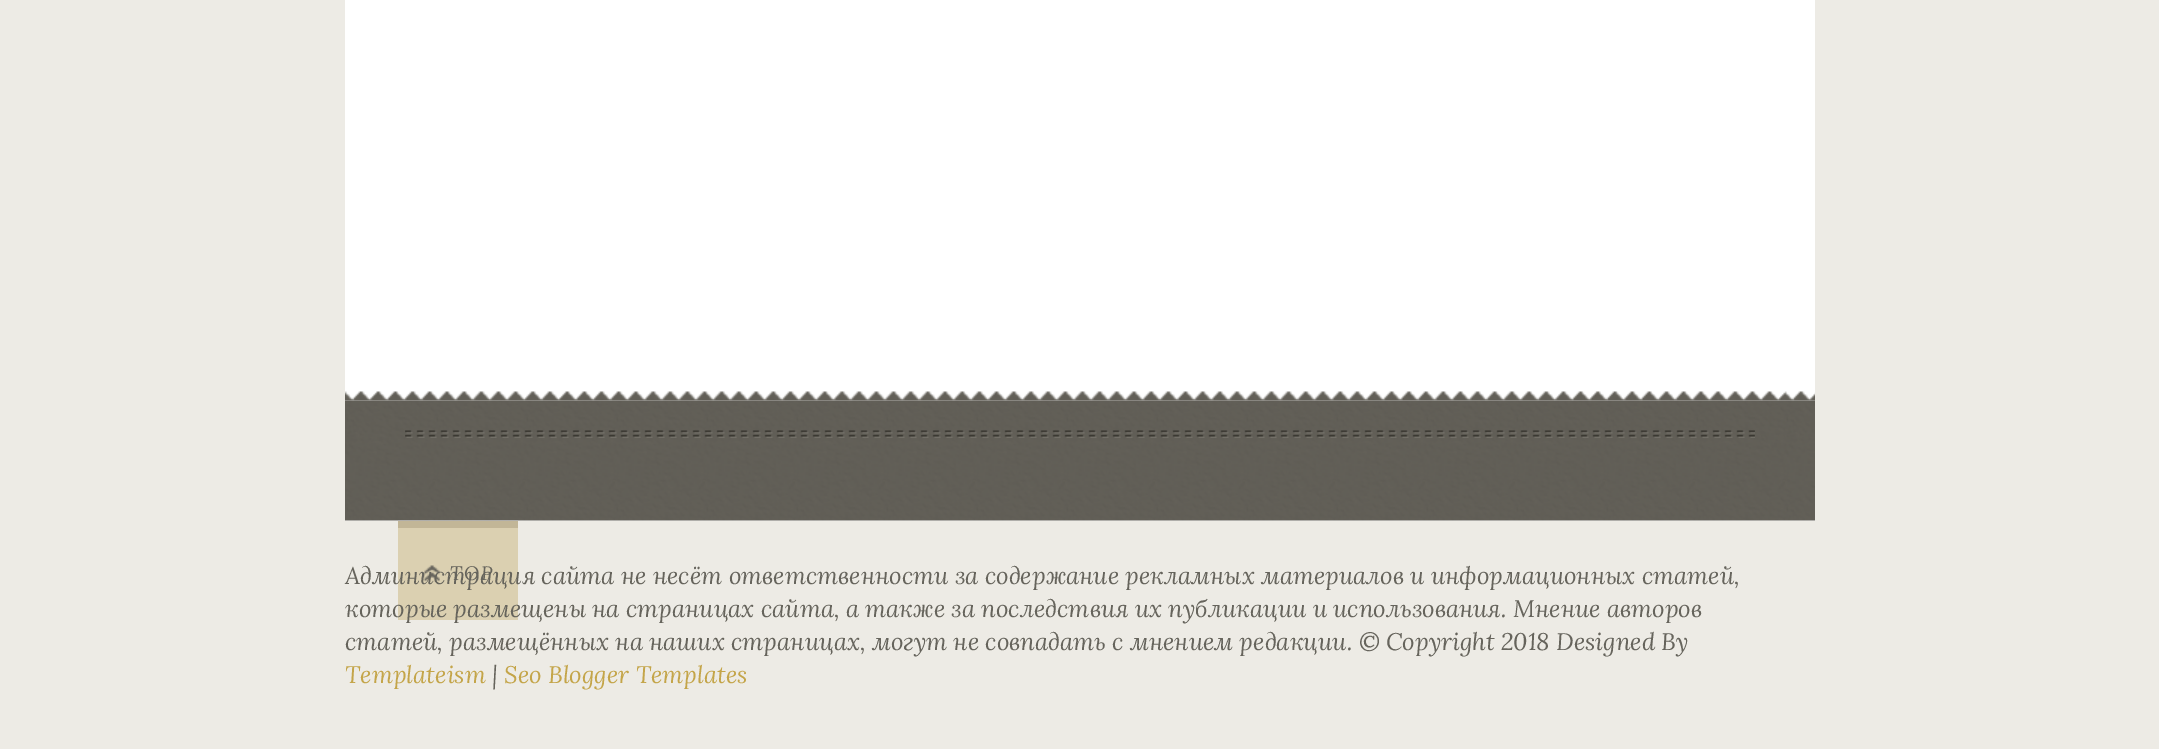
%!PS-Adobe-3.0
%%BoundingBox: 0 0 2159 749
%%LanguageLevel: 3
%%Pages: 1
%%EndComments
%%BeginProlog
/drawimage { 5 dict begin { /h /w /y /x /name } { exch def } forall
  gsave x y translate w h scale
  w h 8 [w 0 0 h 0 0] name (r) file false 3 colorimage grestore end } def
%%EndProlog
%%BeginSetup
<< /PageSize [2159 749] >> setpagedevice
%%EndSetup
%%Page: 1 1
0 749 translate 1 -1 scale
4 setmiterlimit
0.929 0.922 0.898 setrgbcolor
0 0 2159 749 rectfill
1 setgray
345 0 1470 521 rectfill
(images/1.raw) 345 391 1470 10 drawimage
(images/2.raw) 345 400 1470 121 drawimage
(images/3.raw) 405 430 1350 8 drawimage
0.859 0.816 0.694 setrgbcolor
398 528 120 92 rectfill
0.761 0.714 0.592 setrgbcolor
398 521 120 7 rectfill
/Lora-Italic [24 0 0 -24 0 0] selectfont
0.4 0.392 0.361 setrgbcolor
345 584 moveto (Администрация сайта не несёт ответственности за содержание рекламных материалов и информационных статей,) show
345 617 moveto (которые размещены на страницах сайта, а также за последствия их публикации и использования. Мнение авторов) show
345 650 moveto (статей, размещённых на наших страницах, могут не совпадать с мнением редакции. © Copyright 2018 Designed By) show
0.769 0.647 0.286 setrgbcolor
345 683 moveto (Templateism) show
0.4 0.392 0.361 setrgbcolor
492 683 moveto (|) show
0.769 0.647 0.286 setrgbcolor
504 683 moveto (Seo Blogger Templates) show
(images/4.raw) 424 565 16 17 drawimage
/Lora-Italic [19.5 0 0 -19.5 0 0] selectfont
0.4 0.392 0.361 setrgbcolor
450 580 moveto 1.5 0 (TOP) ashow
showpage
%%EOF
